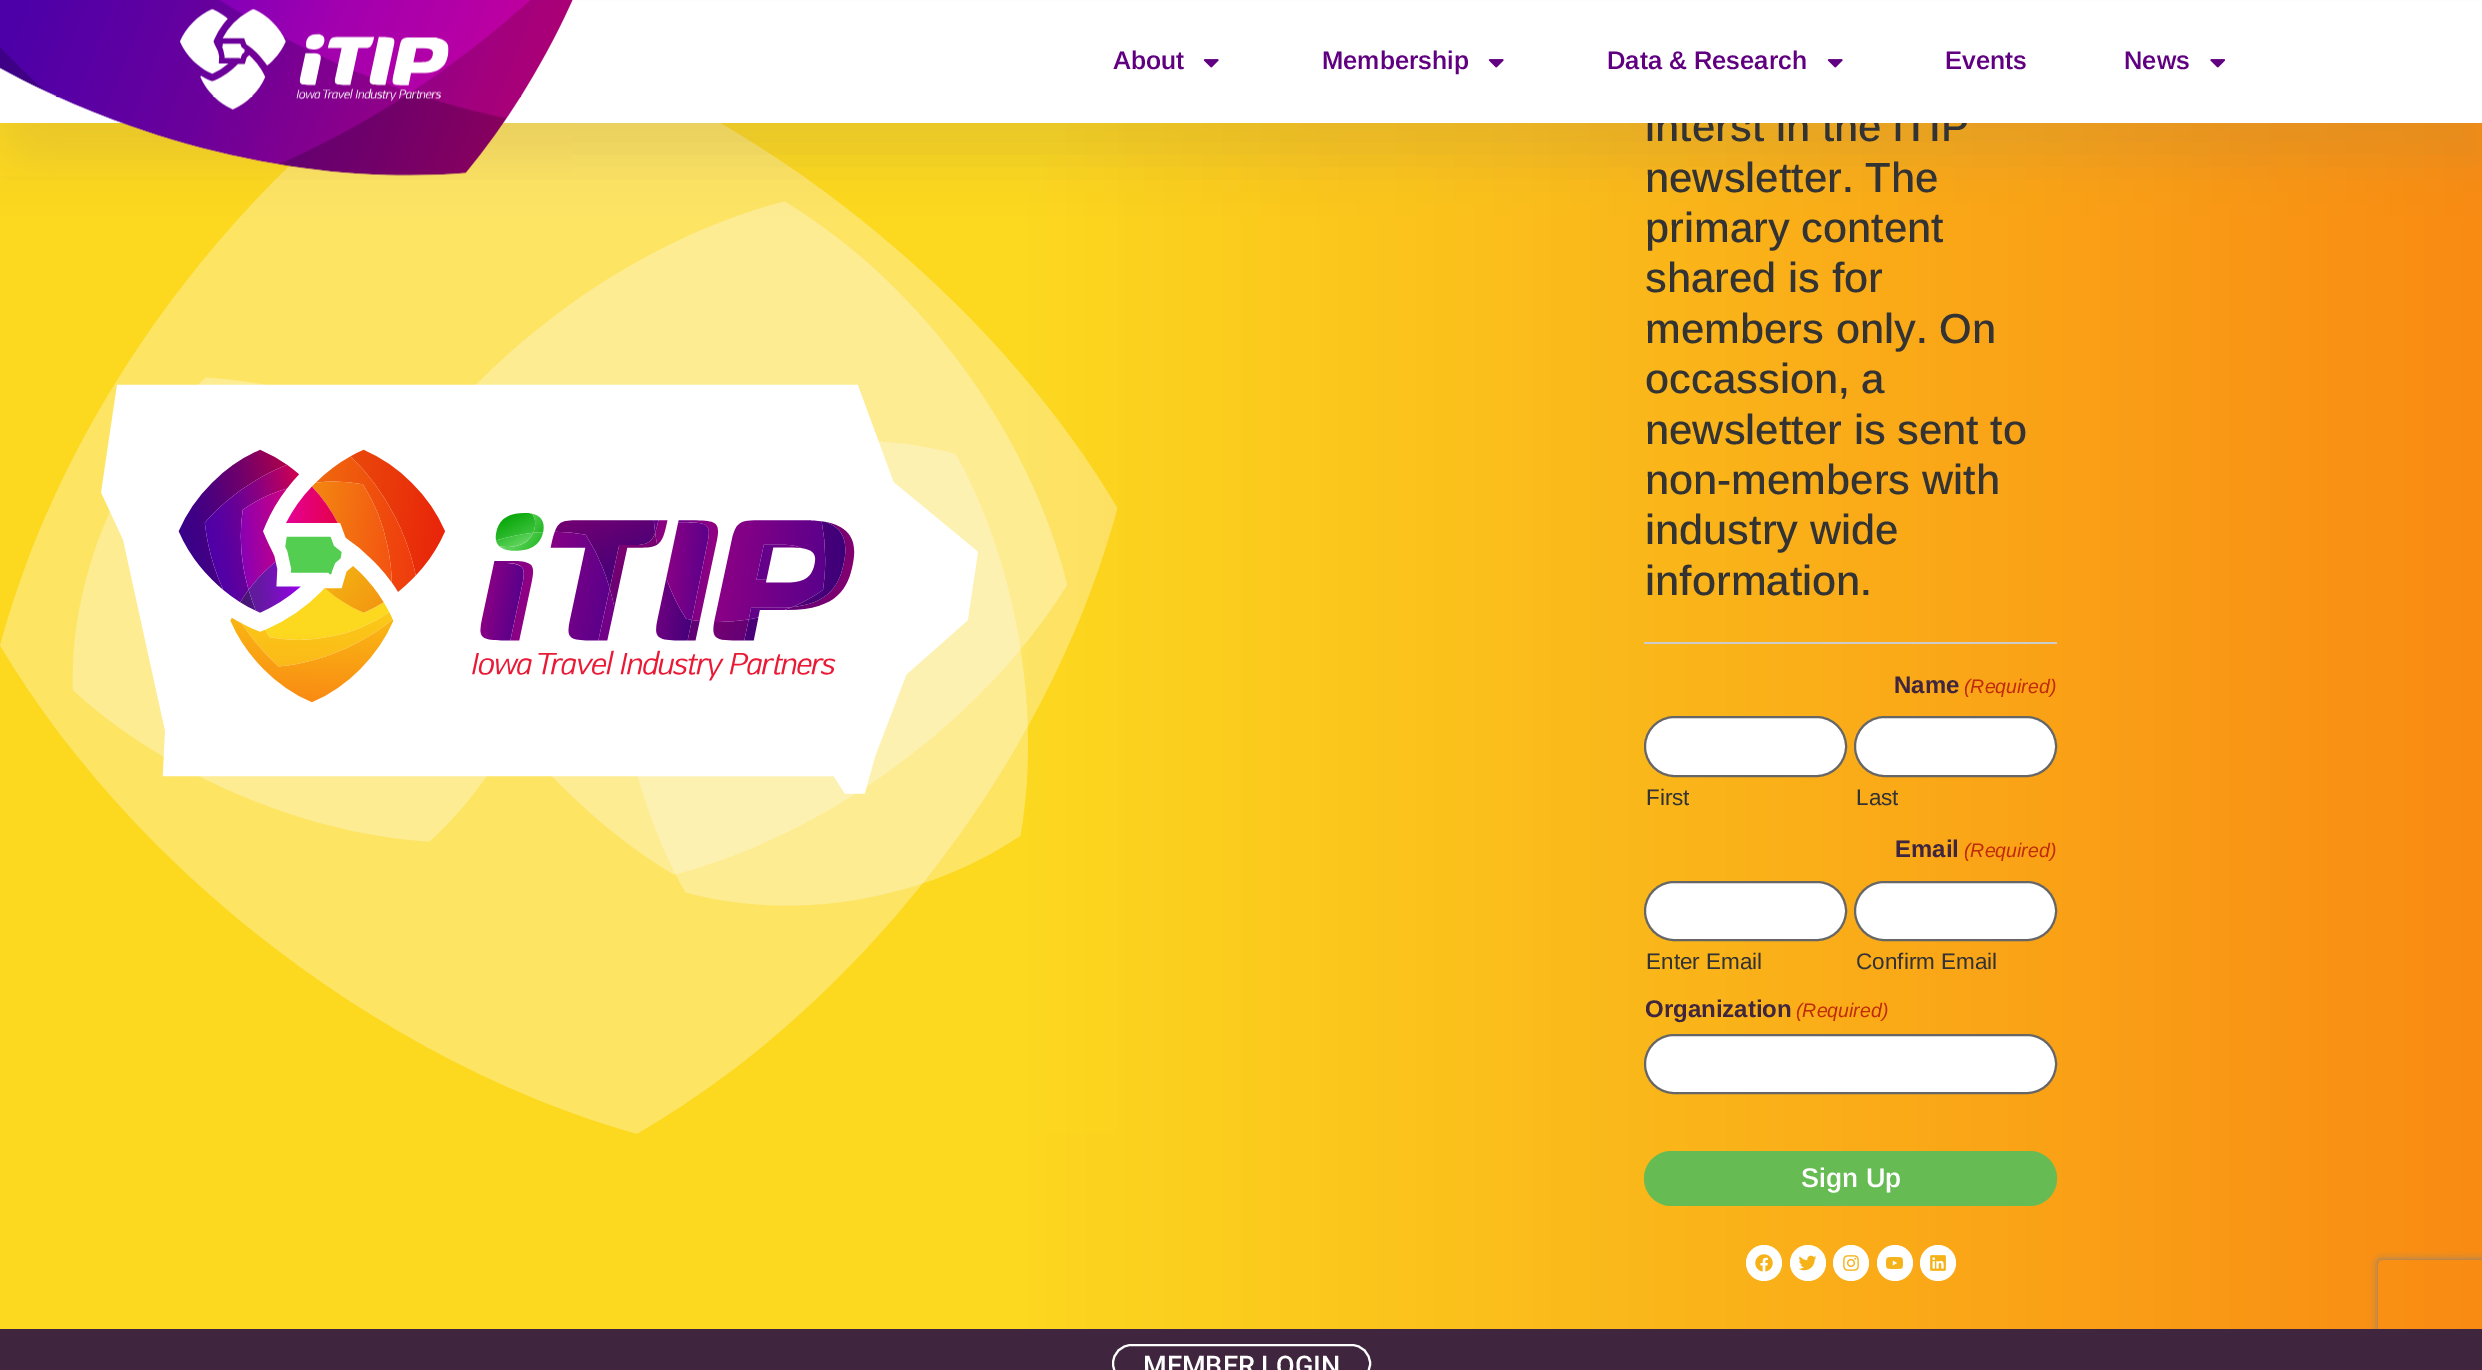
%!PS-Adobe-3.0
%%BoundingBox: 0 0 2482 1370
%%LanguageLevel: 3
%%Pages: 1
%%EndComments
%%BeginProlog
/setalpha { dup .setfillconstantalpha .setstrokeconstantalpha } def
/rrect { 5 dict begin { /r /h /w /y /x } { exch def } forall
  x r add y moveto x w add y 2 copy h add r arct x w add y h add x 1 index r arct
  x y h add x y r arct x y 2 copy exch w add exch r arct closepath end } def
/softshadow { 12 dict begin { /a /b /q /h /w /y /x } { exch def } forall gsave /was 0 def
  9 -2 -9 { dup b mul 4 div /e exch def 1 sub .425 mul 2.718 exch exp 1 add a .99 .min exch div /now exch def
    1 1 now sub 1 was sub div sub setalpha /was now def
    w h .min e 2 mul add 0 gt { x e sub y e sub w e 2 mul add h e 2 mul add
      q e add b .6 mul add w h .min 2 div e add .min 0 .max rrect fill } if } for grestore end } def
/drawimage { 5 dict begin { /h /w /y /x /name } { exch def } forall
  gsave x y translate w h scale
  w h 8 [w 0 0 h 0 0] name (r) file false 3 colorimage grestore end } def
%%EndProlog
%%BeginSetup
<< /PageSize [2482 1370] /PageUsesTransparency true >> setpagedevice
%%EndSetup
%%Page: 1 1
0 .pushpdf14devicefilter
0 1370 translate 1 -1 scale
4 setmiterlimit
1 setgray
0 0 2482 1370 rectfill
gsave newpath 0 123 moveto 2482 123 lineto 2482 1329 lineto 0 1329 lineto closepath clip newpath
<< /ShadingType 2 /ColorSpace /DeviceRGB /Coords [0 576 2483 576] /Extend [true true] /Function << /FunctionType 3 /Domain [0 1] /Functions [<< /FunctionType 2 /Domain [0 1] /C0 [0.988 0.847 0.122] /C1 [0.988 0.847 0.122] /N 1 >> << /FunctionType 2 /Domain [0 1] /C0 [0.988 0.847 0.122] /C1 [0.976 0.545 0.075] /N 1 >>] /Bounds [0.41] /Encode [0 1 0 1] >> >> shfill grestore
(images/4.raw) 0 123 1118 1011 drawimage
0.631 0.522 0.302 setrgbcolor
0 38 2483 123 0 25 0.21 softshadow
0.8 setgray
1644 642 413 2 rectfill
1 setgray
1645 717 201 59 29.5 rrect gsave fill grestore
0.4 setgray
2 setlinewidth
stroke
1 setgray
1855 717 201 59 29.5 rrect gsave fill grestore
0.4 setgray
stroke
1 setgray
1645 882 201 58 29 rrect gsave fill grestore
0.4 setgray
stroke
1 setgray
1855 882 201 58 29 rrect gsave fill grestore
0.4 setgray
stroke
1 setgray
1645 1035 411 58 29 rrect gsave fill grestore
0.4 setgray
stroke
gsave
newpath 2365 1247 moveto 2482 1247 lineto 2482 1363 lineto 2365 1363 lineto closepath 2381 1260 moveto 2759 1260 lineto 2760.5 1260 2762 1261.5 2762 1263 curveto 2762 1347 lineto 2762 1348.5 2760.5 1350 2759 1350 curveto 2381 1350 lineto 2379.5 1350 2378 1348.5 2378 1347 curveto 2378 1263 lineto 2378 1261.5 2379.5 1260 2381 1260 curveto closepath eoclip newpath
0.502 setgray
2378 1260 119 90 3 4 1 softshadow
grestore
0.4 0.737 0.325 setrgbcolor
1644 1151 413 55 27.5 rrect fill
1 setgray
newpath 1764 1263 18 0 360 arc closepath fill
(images/5.raw) 1755 1254 18 18 drawimage
newpath 1808 1263 18 0 360 arc closepath fill
(images/6.raw) 1799 1255 18 16 drawimage
newpath 1851 1263 18 0 360 arc closepath fill
(images/7.raw) 1843 1255 16 16 drawimage
newpath 1895 1263 18 0 360 arc closepath fill
(images/8.raw) 1886 1257 17 12 drawimage
newpath 1938 1263 18 0 360 arc closepath fill
(images/9.raw) 1930 1255 16 16 drawimage
0.247 0.149 0.243 setrgbcolor
0 1329 2482 41 rectfill
1 setgray
1113 1345 257 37 18.5 rrect stroke
/Arimo-Medium [42 0 0 -42 0 0] selectfont
0.2 setgray
1645 141 moveto (interst in the iTIP) show
1 setgray
0 1 2482 122 rectfill
(images/1.raw) 0 0 573 176 drawimage
(images/3.raw) 2210 59 16 9 drawimage
/Arimo-SemiBold [25.5 0 0 -25.5 0 0] selectfont
0.376 0 0.506 setrgbcolor
2124 69 moveto (News) show
1945 69 moveto (Events) show
(images/2.raw) 1827 59 16 9 drawimage
1607 69 moveto (Data & Research) show
(images/2.raw) 1488 59 16 9 drawimage
1322 69 moveto (Membership) show
(images/2.raw) 1203 59 16 9 drawimage
1113 69 moveto (About) show
/Arimo-Medium [42 0 0 -42 0 0] selectfont
0.2 setgray
1645 192 moveto (newsletter. The) show
1645 242 moveto (primary content) show
1645 292 moveto (shared is for) show
1645 343 moveto (members only. On) show
1645 393 moveto (occassion, a) show
1645 444 moveto (newsletter is sent to) show
1645 494 moveto (non-members with) show
1645 544 moveto (industry wide) show
1645 595 moveto (information.) show
/Arimo-Bold [24 0 0 -24 0 0] selectfont
0.247 0.149 0.243 setrgbcolor
1894 693 moveto (Name) show
/Arimo-Italic [19.5 0 0 -19.5 0 0] selectfont
0.753 0.169 0.039 setrgbcolor
1964 693 moveto (\(Required\)) show
/Arimo-Regular [22.5 0 0 -22.5 0 0] selectfont
0.2 setgray
1646 805 moveto (First) show
1856 805 moveto (Last) show
/Arimo-Bold [24 0 0 -24 0 0] selectfont
0.247 0.149 0.243 setrgbcolor
1895 857 moveto (Email) show
/Arimo-Italic [19.5 0 0 -19.5 0 0] selectfont
0.753 0.169 0.039 setrgbcolor
1964 857 moveto (\(Required\)) show
/Arimo-Regular [22.5 0 0 -22.5 0 0] selectfont
0.2 setgray
1646 969 moveto (Enter Email) show
1856 969 moveto (Confirm Email) show
/Arimo-Bold [24 0 0 -24 0 0] selectfont
0.247 0.149 0.243 setrgbcolor
1645 1017 moveto (Organization) show
/Arimo-Italic [19.5 0 0 -19.5 0 0] selectfont
0.753 0.169 0.039 setrgbcolor
1796 1017 moveto (\(Required\)) show
/Arimo-SemiBold [27 0 0 -27 0 0] selectfont
1 setgray
1801 1187 moveto (Sign Up) show
/Roboto-Medium [27 0 0 -27 0 0] selectfont
1143 1375 moveto (MEMBER LOGIN) show
.poppdf14devicefilter showpage
%%EOF
